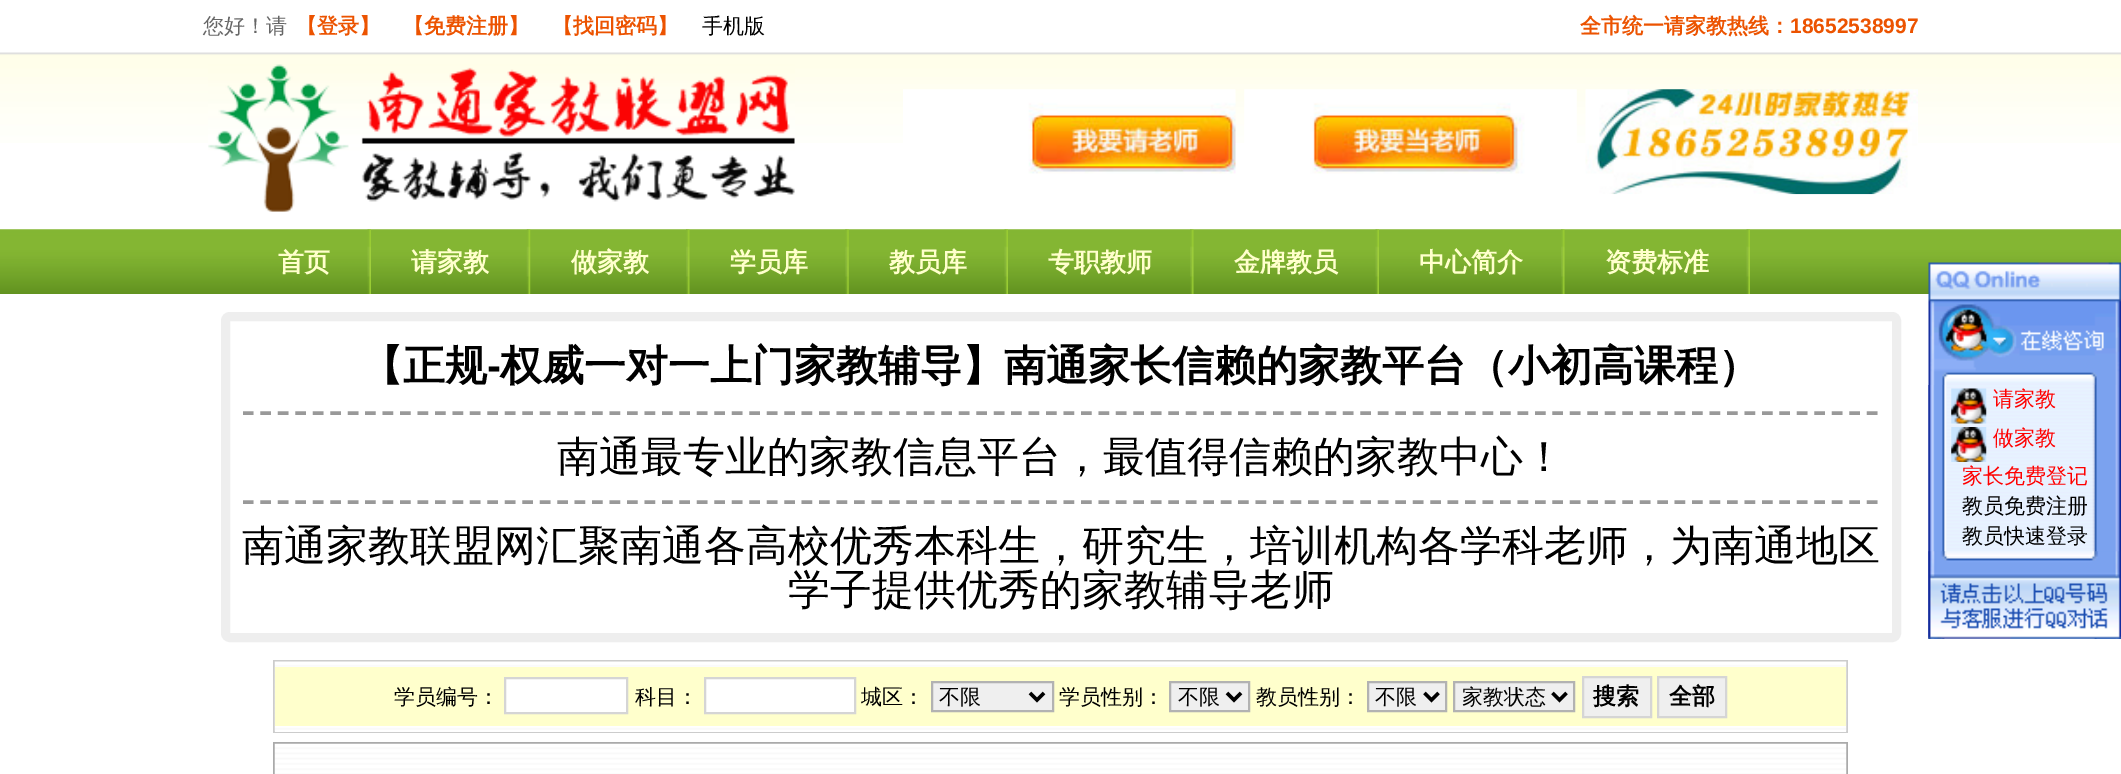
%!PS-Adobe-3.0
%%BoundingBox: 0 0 2121 774
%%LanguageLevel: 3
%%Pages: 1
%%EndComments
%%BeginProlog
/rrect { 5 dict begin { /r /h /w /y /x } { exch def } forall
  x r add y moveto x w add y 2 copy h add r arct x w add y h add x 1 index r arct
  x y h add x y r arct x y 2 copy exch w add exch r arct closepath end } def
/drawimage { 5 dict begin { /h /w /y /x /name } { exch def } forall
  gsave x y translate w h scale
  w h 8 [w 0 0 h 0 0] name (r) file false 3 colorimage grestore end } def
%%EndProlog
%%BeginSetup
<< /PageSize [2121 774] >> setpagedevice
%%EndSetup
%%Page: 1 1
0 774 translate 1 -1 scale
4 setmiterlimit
1 setgray
0 0 2121 774 rectfill
(images/1.raw) 0 52 2121 91 drawimage
(images/2.raw) 208 64 587 148 drawimage
(images/3.raw) 903 89 333 85 drawimage
(images/4.raw) 1244 89 333 85 drawimage
(images/5.raw) 1585 89 333 106 drawimage
(images/6.raw) 0 229 2121 65 drawimage
(images/7.raw) 367 229 4 65 drawimage
(images/8.raw) 526 229 5 65 drawimage
(images/9.raw) 686 229 4 65 drawimage
(images/10.raw) 845 229 4 65 drawimage
(images/11.raw) 1004 229 4 65 drawimage
(images/9.raw) 1190 229 4 65 drawimage
(images/11.raw) 1375 229 4 65 drawimage
(images/9.raw) 1561 229 4 65 drawimage
(images/12.raw) 1746 229 4 65 drawimage
0.933 setgray
9 setlinewidth
225.5 316.5 1671 321 4.5 rrect stroke
0.6 setgray
3.5 setlinewidth
[10.5 6.96] 0 setdash
newpath 243 502 moveto 1878 502 lineto stroke
newpath 243 413 moveto 1878 413 lineto stroke
(images/13.raw) 1928 262 193 123 drawimage
(images/14.raw) 1928 385 193 254 drawimage
(images/15.raw) 1951 388 36 36 drawimage
(images/16.raw) 1951 427 36 35 drawimage
(images/17.raw) 1928 551 193 88 drawimage
0.8 setgray
273 660 1575 73 rectfill
1 setgray
275 731 1571 1 rectfill
(images/18.raw) 274 661 1573 71 drawimage
1 1 0.8 setrgbcolor
275 667 1571 59 rectfill
1 setgray
newpath 505 678 moveto 627 678 lineto 627 713 lineto 505 713 lineto closepath gsave fill grestore
0.835 setgray
2 setlinewidth
[] 0 setdash
stroke
1 setgray
newpath 705 678 moveto 855 678 lineto 855 713 lineto 705 713 lineto closepath gsave fill grestore
0.835 setgray
stroke
0.937 setgray
newpath 932 682 moveto 1053 682 lineto 1053 711 lineto 932 711 lineto closepath gsave fill grestore
0.698 setgray
stroke
0 setgray
3.5 setlinewidth
newpath 1030 693 moveto 1037 700 lineto 1044 693 lineto stroke
0.937 setgray
newpath 1170 682 moveto 1249 682 lineto 1249 711 lineto 1170 711 lineto closepath gsave fill grestore
0.698 setgray
2 setlinewidth
stroke
0 setgray
3.5 setlinewidth
newpath 1227 693 moveto 1234 700 lineto 1241 693 lineto stroke
0.937 setgray
newpath 1368 682 moveto 1446 682 lineto 1446 711 lineto 1368 711 lineto closepath gsave fill grestore
0.698 setgray
2 setlinewidth
stroke
0 setgray
3.5 setlinewidth
newpath 1424.5 693 moveto 1431.5 700 lineto 1438.5 693 lineto stroke
0.937 setgray
newpath 1454 682 moveto 1574 682 lineto 1574 711 lineto 1454 711 lineto closepath gsave fill grestore
0.698 setgray
2 setlinewidth
stroke
0 setgray
3.5 setlinewidth
newpath 1552.5 693 moveto 1559.5 700 lineto 1566.5 693 lineto stroke
0.937 setgray
newpath 1583 677 moveto 1651 677 lineto 1651 717 lineto 1583 717 lineto closepath gsave fill grestore
0.835 setgray
2 setlinewidth
stroke
0.937 setgray
newpath 1658 677 moveto 1726 677 lineto 1726 717 lineto 1658 717 lineto closepath gsave fill grestore
0.835 setgray
stroke
0.667 setgray
273 742 1575 32 rectfill
(images/19.raw) 274 743 1573 31 drawimage
/WenQuanYiZenHei-Medium [21 0 0 -21 0 0] selectfont
0.4 setgray
203 33 moveto (您好！请) show
/WenQuanYiZenHei-Bold [21 0 0 -21 0 0] selectfont
0.925 0.325 0 setrgbcolor
296 33 moveto (【登录】) show
403 33 moveto (【免费注册】) show
552 33 moveto (【找回密码】) show
/WenQuanYiZenHei-Medium [21 0 0 -21 0 0] selectfont
0 setgray
702 33 moveto (手机版) show
/WenQuanYiZenHei-Bold [21 0 0 -21 0 0] selectfont
0.925 0.325 0 setrgbcolor
1580 33 moveto (全市统一请家教热线：) show
/LiberationSans-Bold [21 0 0 -21 0 0] selectfont
1790 33 moveto (18652538997) show
/WenQuanYiZenHei-Bold [26 0 0 -26 0 0] selectfont
1 1 0.8 setrgbcolor
278 271 moveto (首页) show
411 271 moveto (请家教) show
571 271 moveto (做家教) show
730 271 moveto (学员库) show
889 271 moveto (教员库) show
1048 271 moveto (专职教师) show
1234 271 moveto (金牌教员) show
1419 271 moveto (中心简介) show
1605 271 moveto (资费标准) show
/WenQuanYiZenHei-Bold [42 0 0 -42 0 0] selectfont
0 setgray
361 380 moveto (【正规) show
/LiberationSans-Bold [42 0 0 -42 0 0] selectfont
487 380 moveto (-) show
/WenQuanYiZenHei-Bold [42 0 0 -42 0 0] selectfont
500 380 moveto (权威一对一上门家教辅导】南通家长信赖的家教平台（小初高课程）) show
/WenQuanYiZenHei-Medium [42 0 0 -42 0 0] selectfont
557 471 moveto (南通最专业的家教信息平台，最值得信赖的家教中心！) show
242 560 moveto (南通家教联盟网汇聚南通各高校优秀本科生，研究生，培训机构各学科老师，为南通地区) show
788 604 moveto (学子提供优秀的家教辅导老师) show
/WenQuanYiZenHei-Medium [21 0 0 -21 0 0] selectfont
1 0 0 setrgbcolor
1993 406 moveto (请家教) show
1993 445 moveto (做家教) show
1962 483 moveto (家长免费登记) show
0 setgray
1962 513 moveto (教员免费注册) show
1962 543 moveto (教员快速登录) show
394 704 moveto (学员编号：) show
635 704 moveto (科目：) show
861 704 moveto (城区：) show
939 704 moveto (不限) show
1059 704 moveto (学员性别：) show
1178 704 moveto (不限) show
1256 704 moveto (教员性别：) show
1375 704 moveto (不限) show
1462 704 moveto (家教状态) show
/WenQuanYiZenHei-Bold [23 0 0 -23 0 0] selectfont
1593 704 moveto (搜索) show
1669 704 moveto (全部) show
showpage
%%EOF
